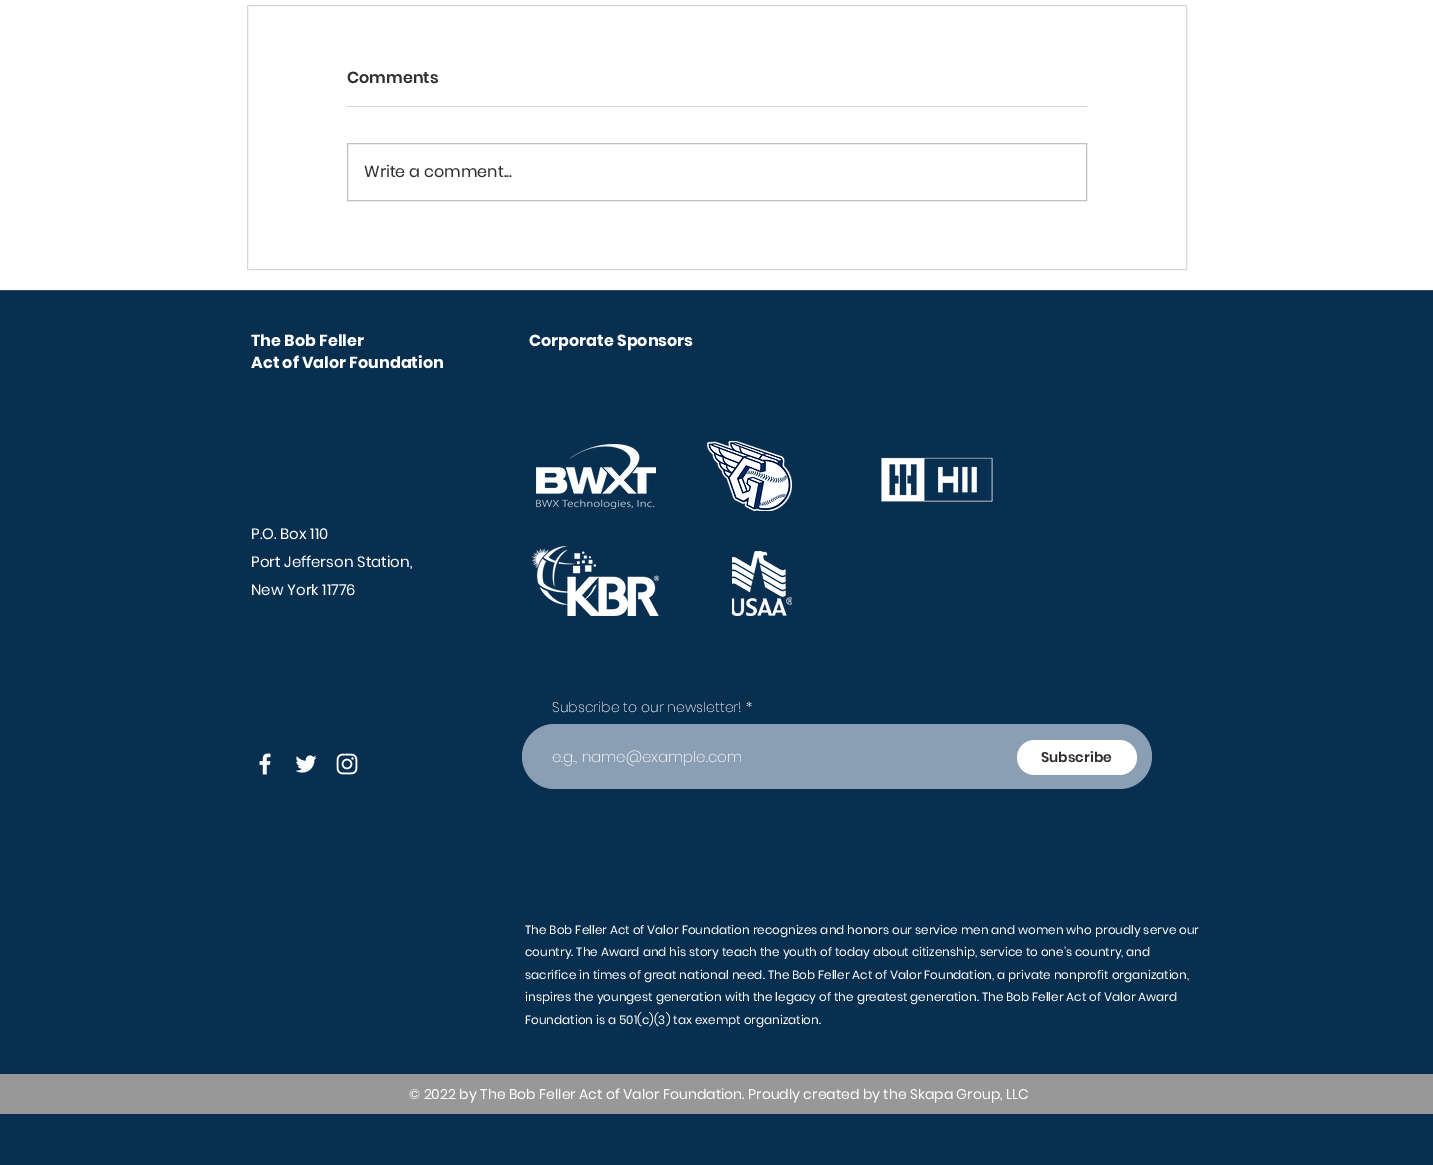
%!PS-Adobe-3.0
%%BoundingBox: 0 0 1433 1165
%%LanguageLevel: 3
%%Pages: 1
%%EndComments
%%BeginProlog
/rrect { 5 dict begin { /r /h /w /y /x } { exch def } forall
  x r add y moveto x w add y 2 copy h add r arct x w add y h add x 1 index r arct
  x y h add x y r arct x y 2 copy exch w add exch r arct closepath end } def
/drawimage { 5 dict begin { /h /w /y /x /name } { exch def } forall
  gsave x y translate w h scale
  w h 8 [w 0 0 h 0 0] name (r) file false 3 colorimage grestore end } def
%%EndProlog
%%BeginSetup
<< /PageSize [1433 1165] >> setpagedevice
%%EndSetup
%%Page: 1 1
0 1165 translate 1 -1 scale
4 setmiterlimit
1 setgray
0 0 1433 1165 rectfill
0.847 setgray
247.5 5.5 939 264 rectstroke
0.839 setgray
347 106 740 1 rectfill
0.757 setgray
347.5 143.5 739 57 rectstroke
0.031 0.18 0.314 setrgbcolor
0 291 1433 874 rectfill
0.176 0.302 0.416 setrgbcolor
0 290 1433 1 rectfill
(images/1.raw) 536 444 120 65 drawimage
(images/2.raw) 707 441 85 70 drawimage
(images/3.raw) 881 457 112 45 drawimage
(images/4.raw) 532 546 127 70 drawimage
(images/5.raw) 732 551 60 65 drawimage
(images/6.raw) 259 753 12 22 drawimage
(images/7.raw) 295 755 22 18 drawimage
(images/8.raw) 336 753 22 22 drawimage
0.541 0.62 0.706 setrgbcolor
522 724 630 65 32.5 rrect fill
1 setgray
1017 740 120 35 17.5 rrect fill
0.596 setgray
0 1074 1433 40 rectfill
/Poppins-SemiBold [16 0 0 -16 0 0] selectfont
0.188 setgray
347 83 moveto (Comments) show
/Poppins-Regular [16 0 0 -16 0 0] selectfont
364 177 moveto (Write a comment...) show
/Poppins-Bold [16 0 0 -16 0 0] selectfont
1 setgray
251 346 moveto (The Bob Feller) show
251 368 moveto (Act of Valor Foundation) show
529 346 moveto (Corporate Sponsors) show
/Poppins-Regular [15 0 0 -15 0 0] selectfont
251 539 moveto (P.O. Box 110) show
251 567 moveto (Port Jefferson Station,) show
251 595 moveto (New York 11776) show
/Poppins-ExtraLight [14 0 0 -14 0 0] selectfont
552 712 moveto (Subscribe to our newsletter! *) show
/Poppins-ExtraLight [15 0 0 -15 0 0] selectfont
552 762 moveto (e.g., name@example.com) show
/Poppins-SemiBold [14 0 0 -14 0 0] selectfont
0.188 setgray
1041 762 moveto (Subscribe) show
/Poppins-Regular [12 0 0 -12 0 0] selectfont
1 setgray
525 934 moveto (The Bob Feller Act of Valor Foundation recognizes and honors our service men and women who proudly serve our) show
525 956 moveto (country. The Award and his story teach the youth of today about citizenship, service to one’s country, and) show
525 979 moveto (sacrifice in times of great national need. The Bob Feller Act of Valor Foundation, a private nonprofit organization,) show
525 1001 moveto (inspires the youngest generation with the legacy of the greatest generation. The Bob Feller Act of Valor Award) show
525 1024 moveto (Foundation is a 501\(c\)\(3\) tax exempt organization.) show
/Poppins-Regular [14 0 0 -14 0 0] selectfont
409 1099 moveto (© 2022 by The Bob Feller Act of Valor Foundation. Proudly created by the Skapa Group, LLC) show
showpage
%%EOF
